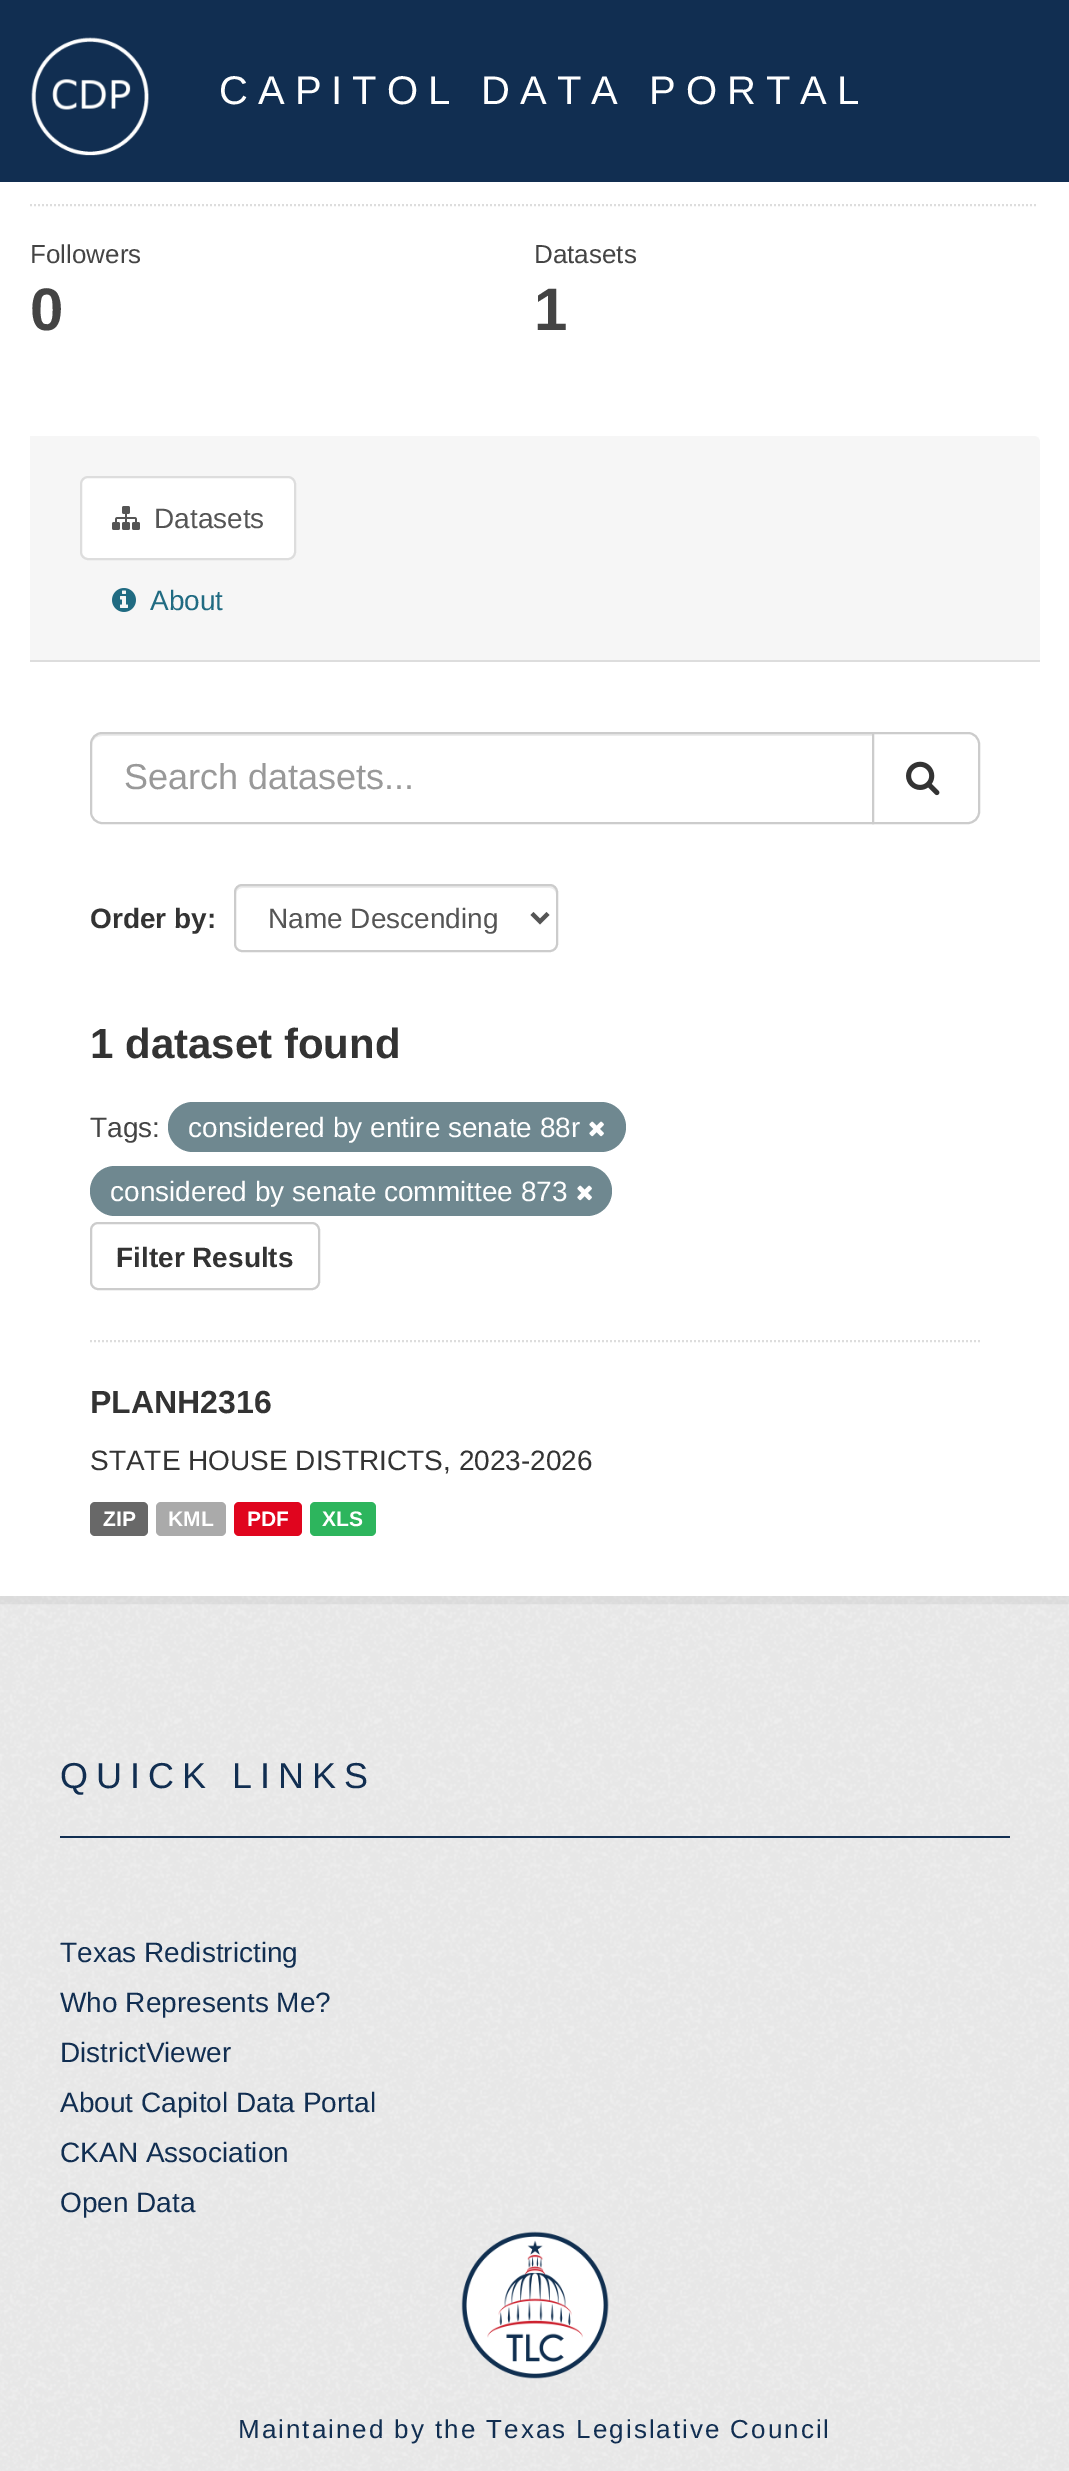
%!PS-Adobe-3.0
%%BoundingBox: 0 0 1069 2471
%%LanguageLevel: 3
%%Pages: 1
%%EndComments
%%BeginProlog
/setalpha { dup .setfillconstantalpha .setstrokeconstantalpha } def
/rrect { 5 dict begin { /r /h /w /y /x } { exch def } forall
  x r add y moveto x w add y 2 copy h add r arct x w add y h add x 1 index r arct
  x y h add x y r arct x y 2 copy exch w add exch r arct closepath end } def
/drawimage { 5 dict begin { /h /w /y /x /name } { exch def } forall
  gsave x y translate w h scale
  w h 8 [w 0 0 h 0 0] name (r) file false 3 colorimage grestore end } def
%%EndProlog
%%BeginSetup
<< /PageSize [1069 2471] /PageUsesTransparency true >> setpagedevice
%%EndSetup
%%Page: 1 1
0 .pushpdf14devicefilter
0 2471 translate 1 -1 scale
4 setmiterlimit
0.933 setgray
0 0 1069 2471 rectfill
(images/1.raw) 0 1596 1069 40 drawimage
0.05 setalpha
0 setgray
8 setlinewidth
-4 -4 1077 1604 rectstroke
1 setalpha
0.067 0.18 0.318 setrgbcolor
0 0 1069 182 rectfill
(images/2.raw) 31 37 118 119 drawimage
1 setgray
0 182 1069 1414 rectfill
0.867 setgray
2 setlinewidth
[2 2] 0 setdash
newpath 30 205 moveto 1038 205 lineto stroke
0.965 setgray
newpath 30 436 moveto 1034 436 lineto 1037.5 436 1040 438.5 1040 442 curveto 1040 662 lineto 30 662 lineto closepath fill
0.867 setgray
30 660 1010 2 rectfill
1 setgray
81 477 214 82 7 rrect gsave fill grestore
0.867 setgray
[] 0 setdash
stroke
(images/3.raw) 112 506 28 24 drawimage
(images/4.raw) 112 588 24 24 drawimage
[2 2] 0 setdash
newpath 90 1341 moveto 980 1341 lineto stroke
0.925 setgray
newpath 102 736 moveto 872 736 lineto 872 734 lineto 102 734 lineto 95 734 92 740 92 746 curveto 92 740 96 736 102 736 curveto closepath fill
0.8 setgray
[] 0 setdash
newpath 102 733 moveto 873 733 lineto 873 823 lineto 102 823 lineto 96 823 91 818 91 812 curveto 91 744 lineto 91 738 96 733 102 733 curveto closepath stroke
1 setgray
newpath 873 733 moveto 968 733 lineto 974 733 979 738 979 744 curveto 979 812 lineto 979 818 974 823 968 823 curveto 873 823 lineto closepath gsave fill grestore
0.8 setgray
stroke
(images/5.raw) 906 761 34 35 drawimage
0.925 setgray
newpath 242 888 moveto 550 888 lineto 553 888 556 891 556 894 curveto 556 890 555 886 550 886 curveto 241 886 lineto 237 887 236 891 236 894 curveto 236 891 239 888 242 888 curveto closepath fill
0.8 setgray
235 885 322 66 7 rrect stroke
0.333 setgray
4 setlinewidth
newpath 532 913.5 moveto 540 921.5 lineto 548 913.5 lineto stroke
0.435 0.533 0.565 setrgbcolor
168 1102 458 50 25 rrect fill
(images/6.raw) 589 1121 15 16 drawimage
90 1166 522 50 25 rrect fill
(images/6.raw) 577 1185 15 16 drawimage
0.8 setgray
2 setlinewidth
91 1223 228 66 7 rrect stroke
0.408 setgray
90 1502 58 34 5 rrect fill
0.667 setgray
156 1502 70 34 5 rrect fill
0.878 0.02 0.118 setrgbcolor
234 1502 68 34 5 rrect fill
0.176 0.71 0.365 setrgbcolor
310 1502 66 34 5 rrect fill
(images/7.raw) 0 1636 1069 835 drawimage
0.067 0.18 0.318 setrgbcolor
60 1836 950 2 rectfill
(images/8.raw) 461 2231 148 148 drawimage
/LiberationSans-Regular [40 0 0 -40 0 0] selectfont
1 setgray
219 104 moveto 10 0 (CAPITOL DATA PORTAL) ashow
/LiberationSans-Regular [26 0 0 -26 0 0] selectfont
0.267 setgray
30 263 moveto (Followers) show
/LiberationSans-Bold [60 0 0 -60 0 0] selectfont
30 330 moveto (0) show
/LiberationSans-Regular [26 0 0 -26 0 0] selectfont
534 263 moveto (Datasets) show
/LiberationSans-Bold [60 0 0 -60 0 0] selectfont
534 330 moveto (1) show
/LiberationSans-Regular [28 0 0 -28 0 0] selectfont
0.333 setgray
154 528 moveto (Datasets) show
0.125 0.42 0.51 setrgbcolor
150 610 moveto (About) show
/LiberationSans-Regular [36 0 0 -36 0 0] selectfont
0.6 setgray
124 789 moveto (Search datasets...) show
/LiberationSans-Bold [28 0 0 -28 0 0] selectfont
0.2 setgray
90 928 moveto (Order by:) show
/LiberationSans-Regular [28 0 0 -28 0 0] selectfont
0.333 setgray
268 928 moveto (Name Descending) show
/LiberationSans-Bold [42 0 0 -42 0 0] selectfont
0.2 setgray
90 1058 moveto (1 dataset found) show
/LiberationSans-Regular [28 0 0 -28 0 0] selectfont
0.267 setgray
90 1137 moveto (Tags:) show
1 setgray
188 1137 moveto (considered by entire senate 88r) show
110 1201 moveto (considered by senate committee 873) show
/LiberationSans-Bold [28 0 0 -28 0 0] selectfont
0.2 setgray
116 1267 moveto (Filter Results) show
/LiberationSans-Bold [32 0 0 -32 0 0] selectfont
90 1413 moveto (PLANH2316) show
/LiberationSans-Regular [28 0 0 -28 0 0] selectfont
90 1470 moveto (STATE HOUSE DISTRICTS, 2023-2026) show
/LiberationSans-Bold [21 0 0 -21 0 0] selectfont
1 setgray
103 1526 moveto (ZIP) show
168 1526 moveto (KML) show
247 1526 moveto (PDF) show
322 1526 moveto (XLS) show
/LiberationSans-Regular [36 0 0 -36 0 0] selectfont
0.067 0.18 0.318 setrgbcolor
60 1788 moveto 8 0 (QUICK LINKS) ashow
/LiberationSans-Regular [28 0 0 -28 0 0] selectfont
60 1962 moveto (Texas Redistricting) show
60 2012 moveto (Who Represents Me?) show
60 2062 moveto (DistrictViewer) show
60 2112 moveto (About Capitol Data Portal) show
60 2162 moveto (CKAN Association) show
60 2212 moveto (Open Data) show
/LiberationSans-Regular [26 0 0 -26 0 0] selectfont
238 2438 moveto 2 0 (Maintained by the Texas Legislative Council) ashow
.poppdf14devicefilter showpage
%%EOF
